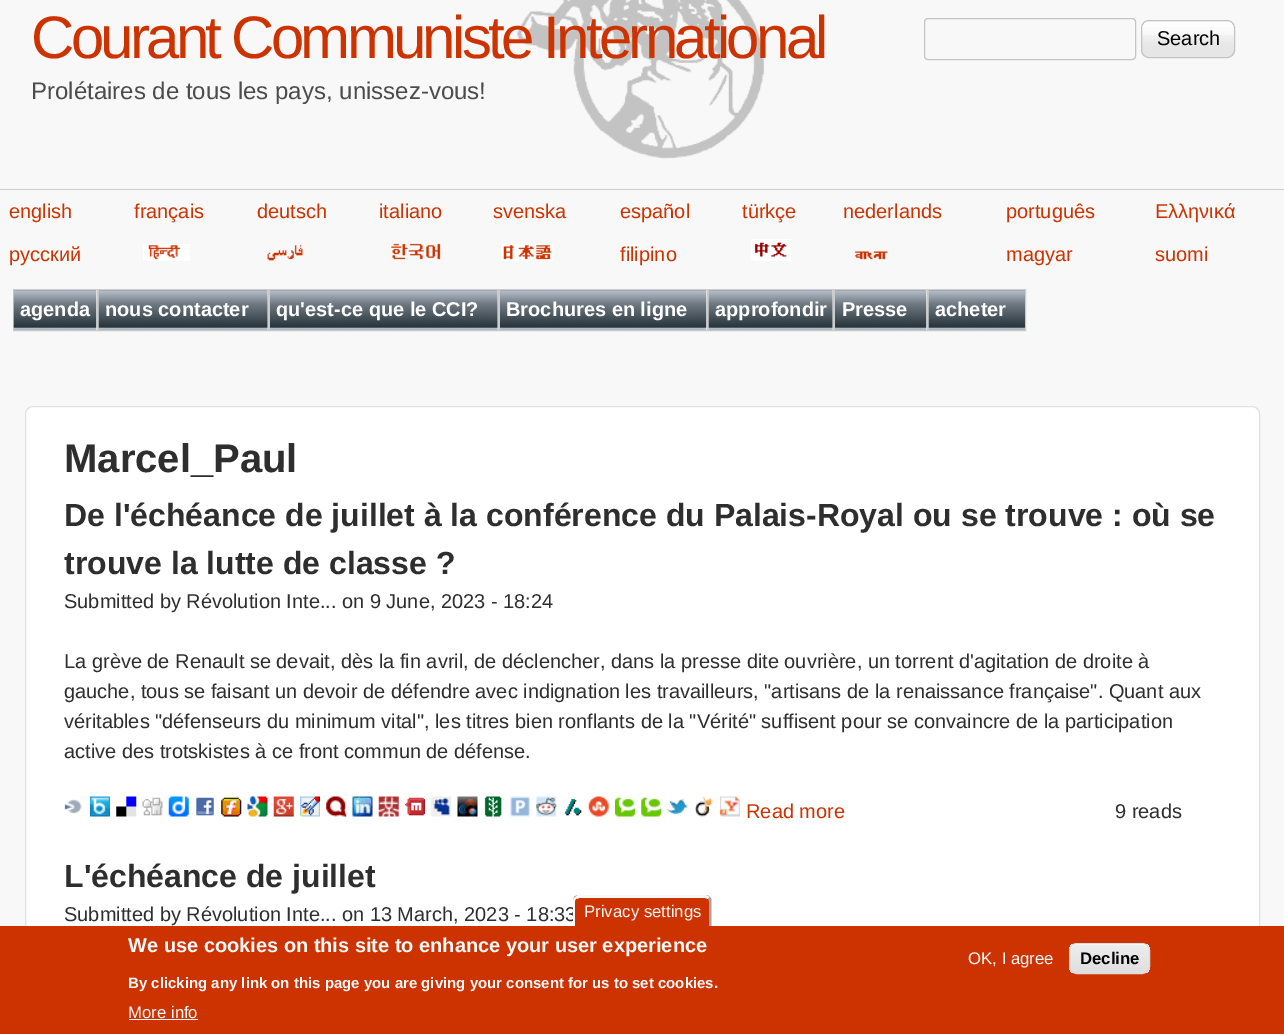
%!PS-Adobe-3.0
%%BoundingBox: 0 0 1284 1034
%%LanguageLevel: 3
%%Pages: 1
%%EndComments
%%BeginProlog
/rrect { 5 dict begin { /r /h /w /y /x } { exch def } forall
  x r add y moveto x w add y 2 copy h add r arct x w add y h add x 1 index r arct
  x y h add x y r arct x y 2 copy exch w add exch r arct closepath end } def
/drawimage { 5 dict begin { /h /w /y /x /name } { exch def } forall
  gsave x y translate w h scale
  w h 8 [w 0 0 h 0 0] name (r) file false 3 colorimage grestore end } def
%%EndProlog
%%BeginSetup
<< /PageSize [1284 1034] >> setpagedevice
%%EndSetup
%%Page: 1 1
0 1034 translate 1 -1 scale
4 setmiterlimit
0.973 setgray
0 0 1284 1034 rectfill
(images/1.raw) 517 0 248 159 drawimage
0.769 setgray
924.5 18.5 211 41 3.5 rrect stroke
(images/2.raw) 1141 22 94 36 drawimage
1141.5 20.5 93 37 7.5 rrect stroke
0.8 setgray
0 189 1284 1 rectfill
(images/3.raw) 143 244 47 17 drawimage
(images/4.raw) 267 245 36 16 drawimage
(images/5.raw) 391 243 50 17 drawimage
(images/6.raw) 501 244 53 17 drawimage
(images/7.raw) 751 239 40 22 drawimage
(images/8.raw) 854 251 34 9 drawimage
0.933 setgray
newpath 13.5 289.5 moveto 97.5 289.5 lineto 97.5 330.5 lineto 13.5 330.5 lineto closepath gsave fill grestore
0.8 setgray
stroke
(images/9.raw) 13 290 84 41 drawimage
0.933 setgray
newpath 98.5 289.5 moveto 268.5 289.5 lineto 268.5 330.5 lineto 98.5 330.5 lineto closepath gsave fill grestore
0.8 setgray
stroke
(images/10.raw) 98 290 170 41 drawimage
0.933 setgray
newpath 269.5 289.5 moveto 498.5 289.5 lineto 498.5 330.5 lineto 269.5 330.5 lineto closepath gsave fill grestore
0.8 setgray
stroke
(images/11.raw) 270 290 228 41 drawimage
0.933 setgray
newpath 499.5 289.5 moveto 707.5 289.5 lineto 707.5 330.5 lineto 499.5 330.5 lineto closepath gsave fill grestore
0.8 setgray
stroke
(images/12.raw) 500 290 207 41 drawimage
0.933 setgray
newpath 708.5 289.5 moveto 833.5 289.5 lineto 833.5 330.5 lineto 708.5 330.5 lineto closepath gsave fill grestore
0.8 setgray
stroke
(images/13.raw) 708 290 125 41 drawimage
0.933 setgray
newpath 834.5 289.5 moveto 927.5 289.5 lineto 927.5 330.5 lineto 834.5 330.5 lineto closepath gsave fill grestore
0.8 setgray
stroke
(images/14.raw) 835 290 92 41 drawimage
928.5 289.5 97 41 rectstroke
(images/15.raw) 928 290 97 41 drawimage
1 setgray
25.5 406.5 1234 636 7.5 rrect gsave fill grestore
0.882 setgray
stroke
(images/16.raw) 64 799 18 15 drawimage
(images/17.raw) 90 796 20 21 drawimage
(images/18.raw) 116 796 21 21 drawimage
(images/19.raw) 142 797 21 19 drawimage
(images/20.raw) 168 796 21 21 drawimage
(images/21.raw) 196 797 18 19 drawimage
(images/22.raw) 221 796 21 21 drawimage
(images/23.raw) 247 796 21 21 drawimage
(images/24.raw) 273 796 21 21 drawimage
(images/25.raw) 300 796 20 21 drawimage
(images/26.raw) 326 796 21 21 drawimage
(images/27.raw) 352 796 21 21 drawimage
(images/28.raw) 378 796 21 21 drawimage
(images/29.raw) 405 797 20 19 drawimage
(images/30.raw) 431 796 21 21 drawimage
(images/31.raw) 457 796 21 21 drawimage
(images/32.raw) 484 796 18 21 drawimage
(images/33.raw) 510 796 20 21 drawimage
(images/34.raw) 536 796 21 21 drawimage
(images/35.raw) 564 798 18 18 drawimage
(images/36.raw) 588 796 21 21 drawimage
(images/37.raw) 615 797 20 20 drawimage
(images/38.raw) 641 797 21 20 drawimage
(images/39.raw) 667 799 21 16 drawimage
(images/40.raw) 695 796 18 21 drawimage
(images/41.raw) 720 796 20 21 drawimage
0.8 0.2 0 setrgbcolor
0 926 1284 108 rectfill
0.973 setgray
129 1019 69 1 rectfill
gsave
1069 943 81 31 8 rrect clip newpath
gsave newpath 1069 944 moveto 1150 944 lineto 1150 973 lineto 1069 973 lineto closepath clip newpath
<< /ShadingType 2 /ColorSpace /DeviceRGB /Coords [1109 944 1109 973] /Extend [true true] /Function << /FunctionType 3 /Domain [0 1] /Functions [<< /FunctionType 2 /Domain [0 1] /C0 [0.929 0.929 0.929] /C1 [0.929 0.929 0.929] /N 1 >> << /FunctionType 2 /Domain [0 1] /C0 [0.929 0.929 0.929] /C1 [0.875 0.875 0.875] /N 1 >>] /Bounds [0.05] /Encode [0 1 0 1] >> >> shfill grestore
grestore
1 setgray
newpath 1076 945 moveto 1142 945 lineto 1146 945 1149 948 1149 951 curveto 1149 941 1139 944 1132 944 curveto 1087 944 lineto 1080 944 1070 941 1070 951 curveto 1070 948 1073 945 1076 945 curveto closepath fill
0.863 setgray
1069.5 943.5 80 30 7.5 rrect stroke
/LiberationSans-Regular [60 0 0 -60 0 0] selectfont
0.8 0.2 0 setrgbcolor
31 58 moveto -3.75 0 (Courant Communiste International) ashow
/LiberationSans-Regular [24 0 0 -24 0 0] selectfont
0.298 setgray
31 99 moveto (Prolétaires de tous les pays, unissez-vous!) show
/LiberationSans-Regular [20 0 0 -20 0 0] selectfont
0 setgray
1157 45 moveto (Search) show
0.8 0.2 0 setrgbcolor
9 218 moveto (english) show
134 218 moveto (français) show
257 218 moveto (deutsch) show
379 218 moveto (italiano) show
493 218 moveto (svenska) show
620 218 moveto (español) show
742 218 moveto (türkçe) show
843 218 moveto (nederlands) show
1006 218 moveto (português) show
1155 218 moveto (Ελληνικά) show
9 261 moveto (русский) show
620 261 moveto (filipino) show
1006 261 moveto (magyar) show
1155 261 moveto (suomi) show
/LiberationSans-Bold [20 0 0 -20 0 0] selectfont
1 setgray
20 316 moveto (agenda) show
105 316 moveto (nous contacter) show
276 316 moveto (qu'est-ce que le CCI?) show
506 316 moveto (Brochures en ligne) show
715 316 moveto (approfondir) show
842 316 moveto (Presse) show
935 316 moveto (acheter) show
/LiberationSans-Bold [40 0 0 -40 0 0] selectfont
0.18 setgray
64 472 moveto (Marcel_Paul) show
/LiberationSans-Bold [32 0 0 -32 0 0] selectfont
64 526 moveto (De l'échéance de juillet à la conférence du Palais-Royal ou se trouve : où se) show
64 574 moveto (trouve la lutte de classe ?) show
/LiberationSans-Regular [20 0 0 -20 0 0] selectfont
64 608 moveto (Submitted by Révolution Inte... on 9 June, 2023 - 18:24) show
64 668 moveto (La grève de Renault se devait, dès la fin avril, de déclencher, dans la presse dite ouvrière, un torrent d'agitation de droite à) show
64 698 moveto (gauche, tous se faisant un devoir de défendre avec indignation les travailleurs, "artisans de la renaissance française". Quant aux) show
64 728 moveto (véritables "défenseurs du minimum vital", les titres bien ronflants de la "Vérité" suffisent pour se convaincre de la participation) show
64 758 moveto (active des trotskistes à ce front commun de défense.) show
0.8 0.2 0 setrgbcolor
746 818 moveto (Read more) show
0.18 setgray
1115 818 moveto (9 reads) show
/LiberationSans-Bold [32 0 0 -32 0 0] selectfont
64 887 moveto (L'échéance de juillet) show
/LiberationSans-Regular [20 0 0 -20 0 0] selectfont
64 921 moveto (Submitted by Révolution Inte... on 13 March, 2023 - 18:33) show
0.8 0.2 0 setrgbcolor
newpath 579 895 moveto 705 895 lineto 708.5 895 711 897.5 711 901 curveto 711 926 lineto 573 926 lineto 573 901 lineto 573 897.5 575.5 895 579 895 curveto closepath fill
0.973 setgray
newpath 579 895 moveto 706 895 lineto 710 897 lineto 708 899 lineto 705 898 lineto 579 898 lineto 577 899 lineto 575 897 lineto 576 896 577 895 579 895 curveto closepath fill
0.647 setgray
newpath 711.5 899 moveto 711.5 926 lineto 709 926 lineto 709 901 lineto 709 900 708.5 899.5 708 899 curveto 710 897 lineto closepath fill
0.973 setgray
newpath 575 897 moveto 576.5 898.5 lineto 575.5 899 575 900 575 901 curveto 575 926 lineto 573 926 lineto 573 901 lineto 573 899.5 573.5 898 575 897 curveto closepath fill
/LiberationSans-Regular [16.75 0 0 -16.75 0 0] selectfont
584 917 moveto (Privacy settings) show
/LiberationSans-Bold [20 0 0 -20 0 0] selectfont
128 952 moveto (We use cookies on this site to enhance your user experience) show
/LiberationSans-Bold [15 0 0 -15 0 0] selectfont
128 988 moveto (By clicking any link on this page you are giving your consent for us to set cookies.) show
/LiberationSans-Regular [16.75 0 0 -16.75 0 0] selectfont
128 1018 moveto (More info) show
968 964 moveto (OK, I agree) show
/LiberationSans-Bold [16.75 0 0 -16.75 0 0] selectfont
0 setgray
1080 964 moveto (Decline) show
showpage
%%EOF
